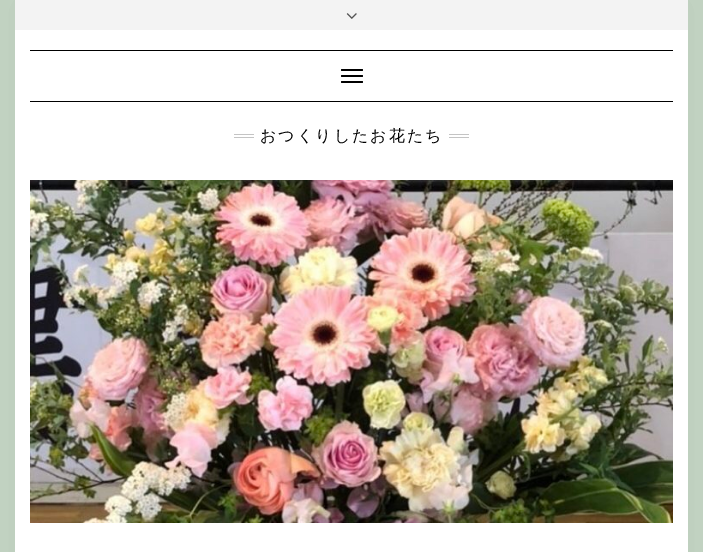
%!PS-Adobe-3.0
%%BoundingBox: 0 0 703 552
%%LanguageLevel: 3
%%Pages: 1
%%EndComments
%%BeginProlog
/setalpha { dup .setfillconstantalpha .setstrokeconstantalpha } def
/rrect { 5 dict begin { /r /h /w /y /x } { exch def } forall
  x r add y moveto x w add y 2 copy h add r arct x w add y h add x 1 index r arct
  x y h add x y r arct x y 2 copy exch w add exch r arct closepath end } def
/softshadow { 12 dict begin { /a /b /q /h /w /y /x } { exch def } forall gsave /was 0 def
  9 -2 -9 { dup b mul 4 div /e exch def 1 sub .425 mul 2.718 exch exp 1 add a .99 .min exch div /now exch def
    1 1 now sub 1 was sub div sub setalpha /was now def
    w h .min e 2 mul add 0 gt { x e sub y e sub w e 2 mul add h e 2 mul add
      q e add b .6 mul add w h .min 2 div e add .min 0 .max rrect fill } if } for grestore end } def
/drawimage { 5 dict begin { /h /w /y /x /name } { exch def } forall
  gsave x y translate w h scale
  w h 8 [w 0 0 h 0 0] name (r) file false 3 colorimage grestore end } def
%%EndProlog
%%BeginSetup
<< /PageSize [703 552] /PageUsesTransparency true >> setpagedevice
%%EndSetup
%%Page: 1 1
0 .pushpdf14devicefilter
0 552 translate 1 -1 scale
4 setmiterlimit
0.773 0.839 0.773 setrgbcolor
0 0 703 552 rectfill
0 setgray
15 0 673 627 0 25 0.06 softshadow
1 setgray
15 30 673 522 rectfill
0.953 setgray
15 0 673 30 rectfill
(images/1.raw) 346 13 11 6 drawimage
0 setgray
30 50 643 1 rectfill
30 101 643 1 rectfill
341 69 22 2 1 rrect fill
341 75 22 2 1 rrect fill
341 81 22 2 1 rrect fill
0.769 setgray
234 134 20 1 rectfill
234 137 20 1 rectfill
449 134 20 1 rectfill
449 137 20 1 rectfill
(images/2.raw) 30 180 643 343 drawimage
/WenQuanYiZenHei-Medium [16 0 0 -16 0 0] selectfont
0 setgray
260 141 moveto 2 0 (おつくりしたお花たち) ashow
.poppdf14devicefilter showpage
%%EOF
